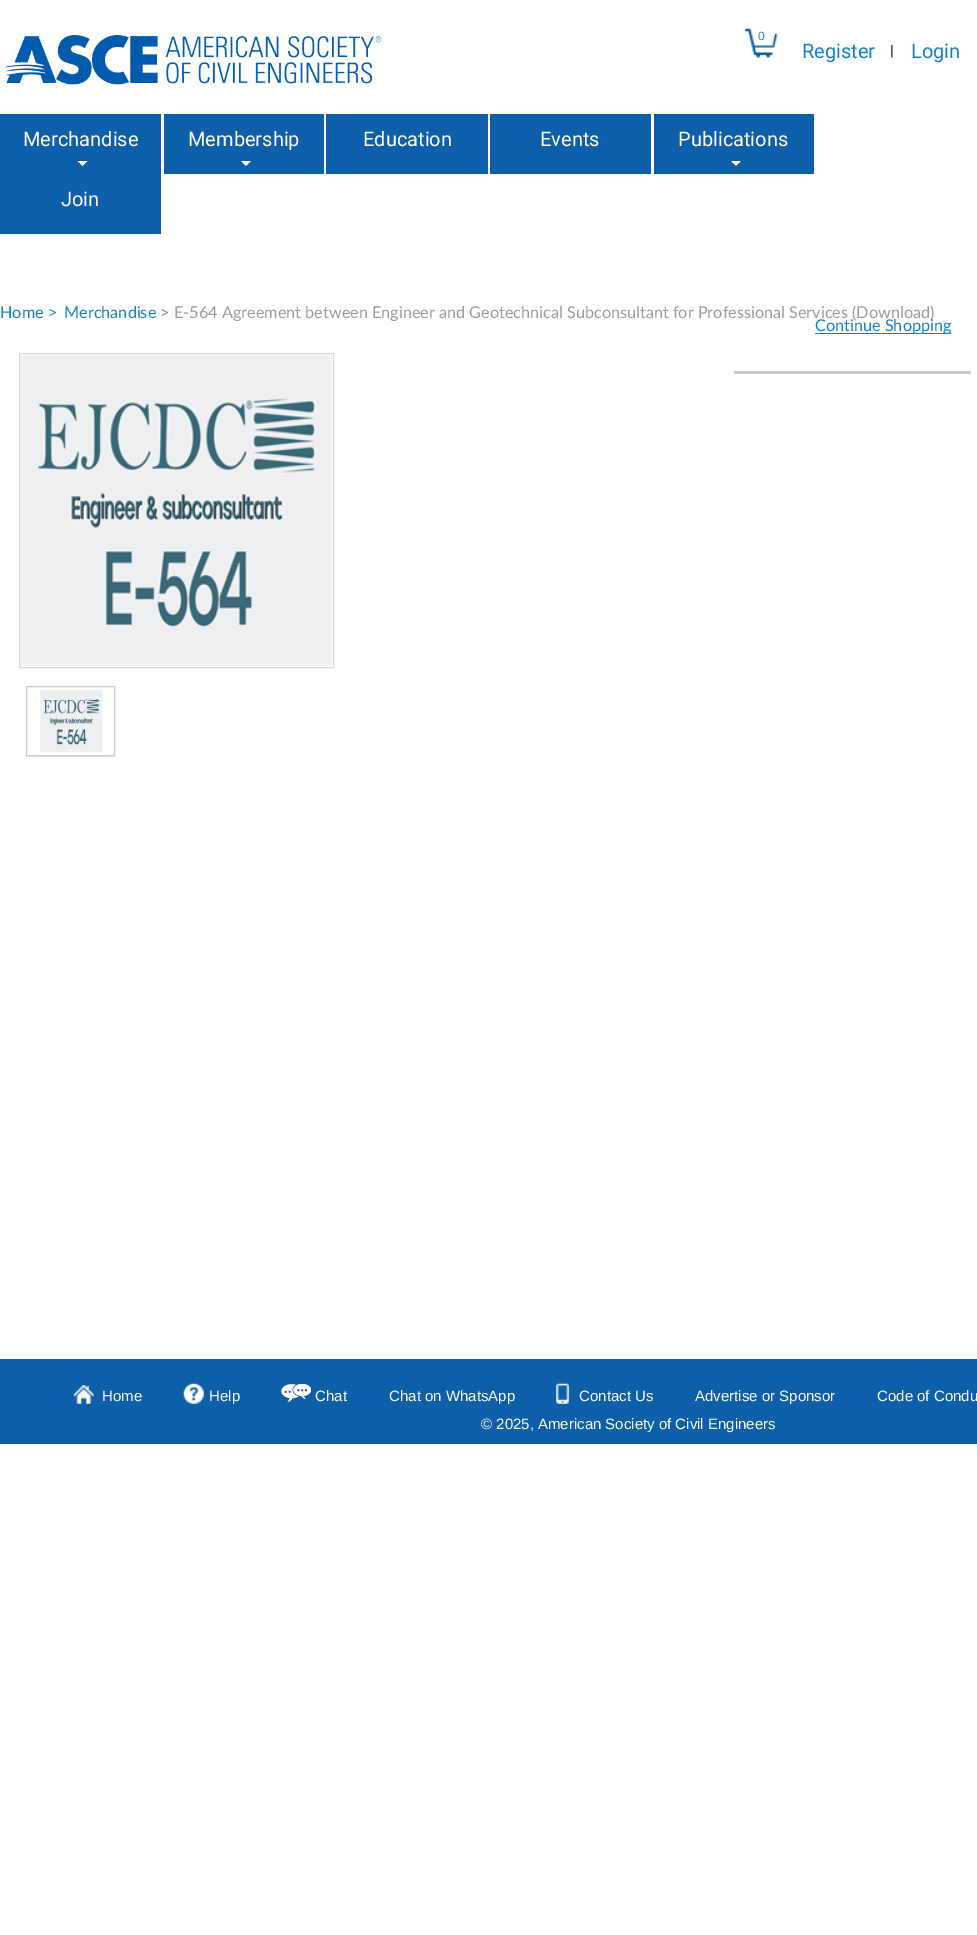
%!PS-Adobe-3.0
%%BoundingBox: 0 0 977 1935
%%LanguageLevel: 3
%%Pages: 1
%%EndComments
%%BeginProlog
/drawimage { 5 dict begin { /h /w /y /x /name } { exch def } forall
  gsave x y translate w h scale
  w h 8 [w 0 0 h 0 0] name (r) file false 3 colorimage grestore end } def
%%EndProlog
%%BeginSetup
<< /PageSize [977 1935] >> setpagedevice
%%EndSetup
%%Page: 1 1
0 1935 translate 1 -1 scale
4 setmiterlimit
1 setgray
0 0 977 1935 rectfill
(images/1.raw) 5 35 377 50 drawimage
(images/2.raw) 744 28 34 30 drawimage
(images/3.raw) 891 45 2 13 drawimage
0.047 0.373 0.659 setrgbcolor
0 114 161 120 rectfill
1 setgray
newpath 77.5 161 moveto 87.5 161 lineto 82.5 166 lineto closepath fill
0.047 0.373 0.659 setrgbcolor
164 114 160 60 rectfill
1 setgray
newpath 241 161 moveto 251 161 lineto 246 166 lineto closepath fill
0.047 0.373 0.659 setrgbcolor
326 114 162 60 rectfill
490 114 161 60 rectfill
654 114 160 60 rectfill
1 setgray
newpath 731 161 moveto 741 161 lineto 736 166 lineto closepath fill
0.09 0.498 0.776 setrgbcolor
815 333 136 1 rectfill
0.8 setgray
734 371 237 3 rectfill
0.851 setgray
19.5 353.5 314 314 rectstroke
(images/4.raw) 20 354 313 312 drawimage
0.91 setgray
26 756 89 1 rectfill
0.8 setgray
26.5 686.5 88 69 rectstroke
(images/5.raw) 40 690 63 63 drawimage
0.047 0.373 0.659 setrgbcolor
0 1359 977 85 rectfill
(images/6.raw) 73 1385 21 19 drawimage
(images/7.raw) 183 1383 21 21 drawimage
(images/8.raw) 281 1384 30 18 drawimage
(images/9.raw) 556 1383 13 21 drawimage
/LiberationSans-Regular [12 0 0 -12 0 0] selectfont
0.2 0.522 0.678 setrgbcolor
758 40 moveto (0) show
/Roboto-Regular [20 0 0 -20 0 0] selectfont
0.09 0.498 0.776 setrgbcolor
802 58 moveto (Register) show
911 58 moveto (Login) show
1 setgray
23 146 moveto (Merchandise) show
188 146 moveto (Membership) show
363 146 moveto (Education) show
540 146 moveto (Events) show
678 146 moveto (Publications) show
61 206 moveto (Join) show
/Lato-Regular [16.25 0 0 -16.25 0 0] selectfont
0.09 0.498 0.776 setrgbcolor
0 318 moveto (Home >) show
64 318 moveto (Merchandise) show
0.549 setgray
160 318 moveto (>) show
0.612 setgray
174 318 moveto (E-564 Agreement between Engineer and Geotechnical Subconsultant for Professional Services \(Download\)) show
0.09 0.498 0.776 setrgbcolor
815 331 moveto (Continue Shopping) show
/LiberationSans-Regular [15 0 0 -15 0 0] selectfont
1 setgray
102 1401 moveto (Home) show
209 1401 moveto (Help) show
315 1401 moveto (Chat) show
389 1401 moveto (Chat on WhatsApp) show
579 1401 moveto (Contact Us) show
695 1401 moveto (Advertise or Sponsor) show
877 1401 moveto (Code of Condu) show
481 1429 moveto (© 2025, American Society of Civil Engineers) show
showpage
%%EOF
